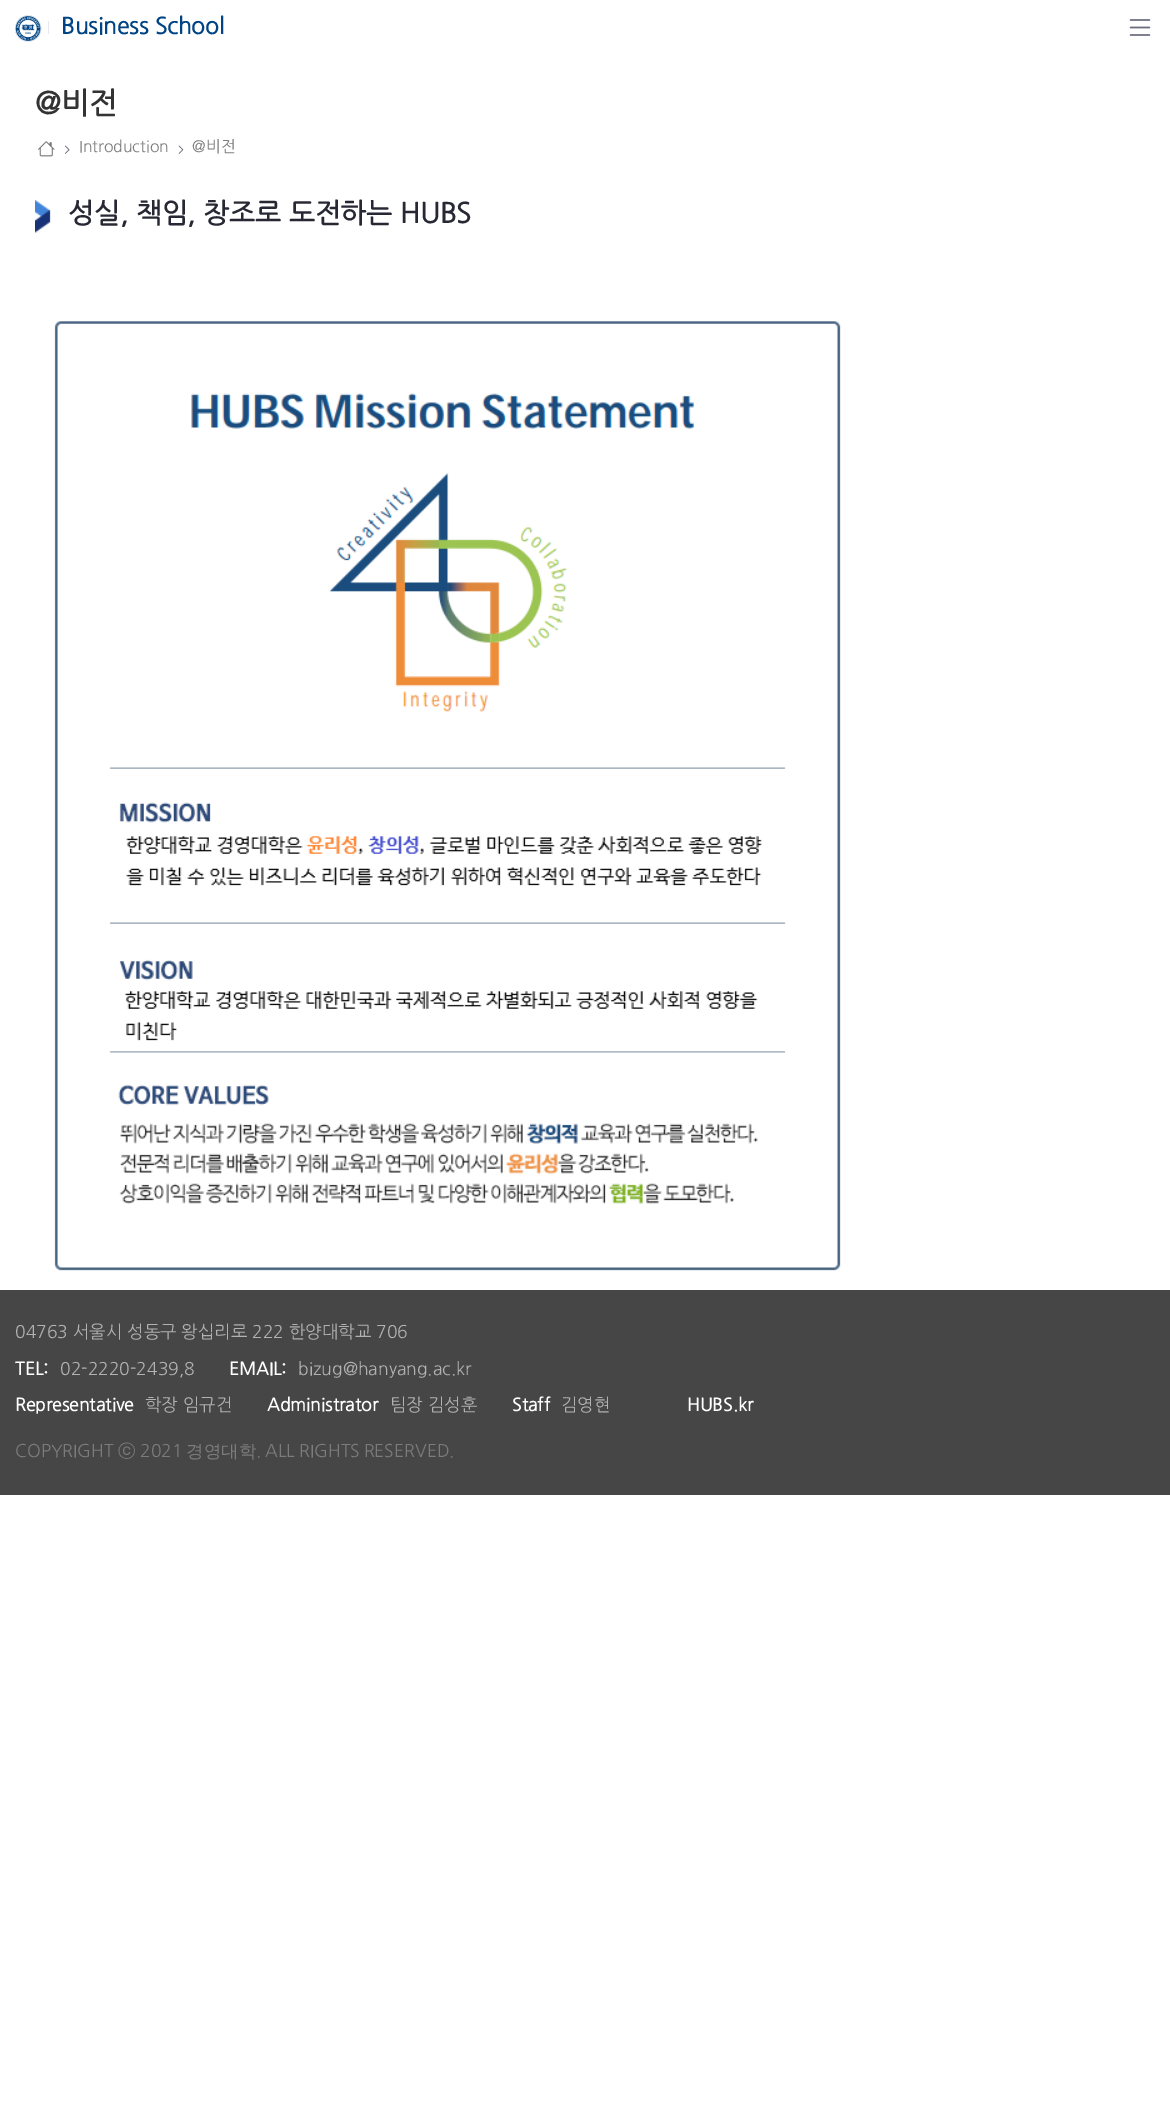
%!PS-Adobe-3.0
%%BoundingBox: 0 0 1170 2125
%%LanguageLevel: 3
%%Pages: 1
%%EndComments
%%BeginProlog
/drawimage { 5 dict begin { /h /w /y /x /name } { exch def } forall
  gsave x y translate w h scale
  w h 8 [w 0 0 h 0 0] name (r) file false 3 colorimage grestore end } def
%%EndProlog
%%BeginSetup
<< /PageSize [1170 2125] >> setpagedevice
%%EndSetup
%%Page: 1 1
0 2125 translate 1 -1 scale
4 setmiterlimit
1 setgray
0 0 1170 2125 rectfill
(images/1.raw) 15 15 27 27 drawimage
0.906 0.906 0.929 setrgbcolor
48 21 1 13 rectfill
(images/2.raw) 1129 19 22 17 drawimage
(images/3.raw) 38 141 17 16 drawimage
(images/4.raw) 64 145 6 9 drawimage
(images/5.raw) 178 145 6 9 drawimage
(images/6.raw) 35 200 16 33 drawimage
(images/7.raw) 54 321 787 950 drawimage
0.275 setgray
0 1290 1170 205 rectfill
/NanumGothic-Bold [22.5 0 0 -22.5 0 0] selectfont
0 0.267 0.514 setrgbcolor
61 34 moveto (Business School) show
/NanumGothic-Bold [30 0 0 -30 0 0] selectfont
0.2 setgray
35 114 moveto (@비전) show
/NanumGothic-Regular [15.75 0 0 -15.75 0 0] selectfont
0.486 setgray
79 152 moveto (Introduction) show
192 152 moveto (@비전) show
/NanumGothic-Bold [27.5 0 0 -27.5 0 0] selectfont
0.153 0.157 0.2 setrgbcolor
68 223 moveto (성실, 책임, 창조로 도전하는 HUBS) show
/NanumGothic-Regular [17.5 0 0 -17.5 0 0] selectfont
0.698 setgray
15 1338 moveto (04763 서울시 성동구 왕십리로 222 한양대학교 706) show
/NanumGothic-Bold [17.5 0 0 -17.5 0 0] selectfont
1 setgray
15 1375 moveto (TEL:) show
/NanumGothic-Regular [17.5 0 0 -17.5 0 0] selectfont
0.698 setgray
60 1375 moveto (02-2220-2439,8) show
/NanumGothic-Bold [17.5 0 0 -17.5 0 0] selectfont
1 setgray
229 1375 moveto (EMAIL:) show
/NanumGothic-Regular [17.5 0 0 -17.5 0 0] selectfont
0.698 setgray
298 1375 moveto (bizug@hanyang.ac.kr) show
/NanumGothic-Bold [17.5 0 0 -17.5 0 0] selectfont
1 setgray
15 1411 moveto (Representative) show
/NanumGothic-Regular [17.5 0 0 -17.5 0 0] selectfont
0.698 setgray
145 1411 moveto (학장 임규건) show
/NanumGothic-Bold [17.5 0 0 -17.5 0 0] selectfont
1 setgray
267 1411 moveto (Administrator) show
/NanumGothic-Regular [17.5 0 0 -17.5 0 0] selectfont
0.698 setgray
390 1411 moveto (팀장 김성훈) show
/NanumGothic-Bold [17.5 0 0 -17.5 0 0] selectfont
1 setgray
512 1411 moveto (Staff) show
/NanumGothic-Regular [17.5 0 0 -17.5 0 0] selectfont
0.698 setgray
561 1411 moveto (김영현) show
/NanumGothic-Bold [17.5 0 0 -17.5 0 0] selectfont
1 setgray
687 1411 moveto (HUBS.kr) show
/NanumGothic-Regular [17.5 0 0 -17.5 0 0] selectfont
0.486 setgray
15 1457 moveto (COPYRIGHT) show
/WenQuanYiZenHei-Medium [17.5 0 0 -17.5 0 0] selectfont
118 1457 moveto (ⓒ) show
/NanumGothic-Regular [17.5 0 0 -17.5 0 0] selectfont
140 1457 moveto (2021) show
/WenQuanYiZenHei-Medium [17.5 0 0 -17.5 0 0] selectfont
186 1457 moveto (경영대학) show
/NanumGothic-Regular [17.5 0 0 -17.5 0 0] selectfont
256 1457 moveto -1 0 32 (. ALL RIGHTS RESERVED.) widthshow
showpage
%%EOF
